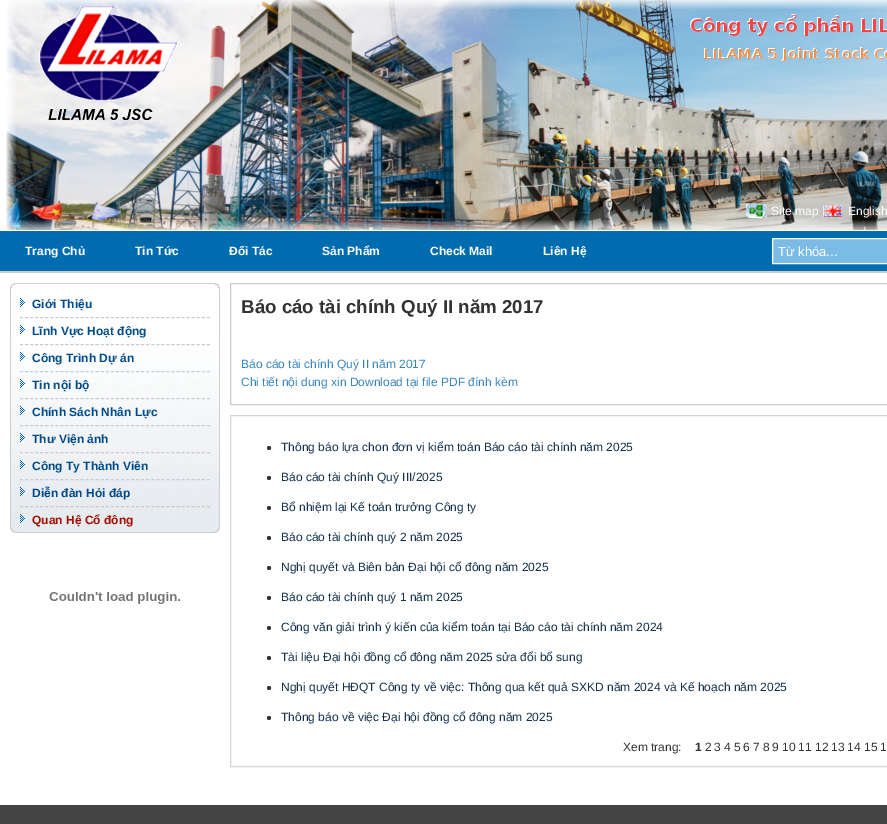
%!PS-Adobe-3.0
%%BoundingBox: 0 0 887 824
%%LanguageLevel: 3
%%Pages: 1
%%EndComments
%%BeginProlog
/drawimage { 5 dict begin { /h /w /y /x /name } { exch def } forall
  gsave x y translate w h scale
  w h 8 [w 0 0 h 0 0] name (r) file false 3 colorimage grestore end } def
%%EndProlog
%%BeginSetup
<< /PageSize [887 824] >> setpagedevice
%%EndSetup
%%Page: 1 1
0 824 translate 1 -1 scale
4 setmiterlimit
0 0.424 0.69 setrgbcolor
0 0 887 824 rectfill
(images/1.raw) 0 0 887 230 drawimage
(images/2.raw) 746 204 21 14 drawimage
(images/3.raw) 823 205 19 12 drawimage
0.8 setgray
0 271 887 2 rectfill
1 setgray
0 230 887 1 rectfill
0.478 0.737 0.898 setrgbcolor
newpath 772.5 238.5 moveto 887.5 238.5 lineto 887.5 263.5 lineto 772.5 263.5 lineto closepath gsave fill grestore
1 setgray
stroke
0 273 887 532 rectfill
(images/4.raw) 10 283 210 250 drawimage
(images/5.raw) 20 298 5 9 drawimage
0.8 setgray
[3 2.05] 0 setdash
newpath 20 317.5 moveto 210 317.5 lineto stroke
(images/5.raw) 20 325 5 9 drawimage
newpath 20 344.5 moveto 210 344.5 lineto stroke
(images/6.raw) 20 352 5 9 drawimage
newpath 20 371.5 moveto 210 371.5 lineto stroke
(images/7.raw) 20 379 5 9 drawimage
newpath 20 398.5 moveto 210 398.5 lineto stroke
(images/8.raw) 20 406 5 9 drawimage
newpath 20 425.5 moveto 210 425.5 lineto stroke
(images/9.raw) 20 433 5 9 drawimage
newpath 20 452.5 moveto 210 452.5 lineto stroke
(images/10.raw) 20 460 5 9 drawimage
newpath 20 479.5 moveto 210 479.5 lineto stroke
(images/11.raw) 20 487 5 9 drawimage
newpath 20 506.5 moveto 210 506.5 lineto stroke
(images/12.raw) 20 514 5 9 drawimage
(images/13.raw) 49 592 131 12 drawimage
[] 0 setdash
230.5 283.5 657 121 rectstroke
0.835 setgray
230.5 415.5 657 351 rectstroke
0.2 setgray
newpath 269 448 2 0 360 arc closepath fill
newpath 269 478 2 0 360 arc closepath fill
newpath 269 508 2 0 360 arc closepath fill
newpath 269 538 2 0 360 arc closepath fill
newpath 269 568 2 0 360 arc closepath fill
newpath 269 598 2 0 360 arc closepath fill
newpath 269 628 2 0 360 arc closepath fill
newpath 269 658 2 0 360 arc closepath fill
newpath 269 688 2 0 360 arc closepath fill
newpath 269 718 2 0 360 arc closepath fill
0.267 setgray
0 805 887 19 rectfill
/LiberationSans-Regular [12 0 0 -12 0 0] selectfont
1 setgray
771 215 moveto (Site map) show
848 215 moveto (English) show
/LiberationSans-Bold [12 0 0 -12 0 0] selectfont
25 255 moveto (Trang Chủ) show
135 255 moveto (Tin Tức) show
229 255 moveto (Đối Tác) show
322 255 moveto (Sản Phẩm) show
430 255 moveto (Check Mail) show
543 255 moveto (Liên Hệ) show
/LiberationSans-Regular [13 0 0 -13 0 0] selectfont
778 256 moveto (Từ khóa...) show
/LiberationSans-Bold [12 0 0 -12 0 0] selectfont
0 0.294 0.541 setrgbcolor
32 308 moveto (Giới Thiệu) show
32 335 moveto (Lĩnh Vực Hoạt động) show
32 362 moveto (Công Trình Dự án) show
32 389 moveto (Tin nội bộ) show
32 416 moveto (Chính Sách Nhân Lực) show
32 443 moveto (Thư Viện ảnh) show
32 470 moveto (Công Ty Thành Viên) show
32 497 moveto (Diễn đàn Hỏi đáp) show
0.651 0.047 0 setrgbcolor
32 524 moveto (Quan Hệ Cổ đông) show
/LiberationSans-Bold [18.7 0 0 -18.7 0 0] selectfont
0.2 setgray
241 313 moveto (Báo cáo tài chính Quý II năm 2017) show
/LiberationSans-Regular [12 0 0 -12 0 0] selectfont
0.216 0.522 0.753 setrgbcolor
241 368 moveto (Báo cáo tài chính Quý II năm 2017) show
241 386 moveto (Chi tiết nội dung xin Download tại file PDF đính kèm) show
0.067 0.188 0.294 setrgbcolor
281 451 moveto (Thông báo lựa chon đơn vị kiểm toán Báo cáo tài chính năm 2025) show
281 481 moveto (Báo cáo tài chính Quý III/2025) show
281 511 moveto (Bổ nhiệm lại Kế toán trưởng Công ty) show
281 541 moveto (Báo cáo tài chính quý 2 năm 2025) show
281 571 moveto (Nghị quyết và Biên bản Đại hội cổ đông năm 2025) show
281 601 moveto (Báo cáo tài chính quý 1 năm 2025) show
281 631 moveto (Công văn giải trình ý kiến của kiểm toán tại Báo cáo tài chính năm 2024) show
281 661 moveto (Tài liệu Đại hội đồng cổ đông năm 2025 sửa đổi bổ sung) show
281 691 moveto (Nghị quyết HĐQT Công ty về việc: Thông qua kết quả SXKD năm 2024 và Kế hoạch năm 2025) show
281 721 moveto (Thông báo về việc Đại hội đồng cổ đông năm 2025) show
0.2 setgray
623 751 moveto (Xem trang:) show
/LiberationSans-Bold [12 0 0 -12 0 0] selectfont
695 751 moveto (1) show
/LiberationSans-Regular [12 0 0 -12 0 0] selectfont
705 751 moveto (2) show
714 751 moveto (3) show
724 751 moveto (4) show
734 751 moveto (5) show
743 751 moveto (6) show
753 751 moveto (7) show
763 751 moveto (8) show
772 751 moveto (9) show
782 751 moveto (10) show
798 751 moveto (11) show
815 751 moveto (12) show
831 751 moveto (13) show
847 751 moveto (14) show
864 751 moveto (15) show
880 751 moveto (1) show
showpage
%%EOF
